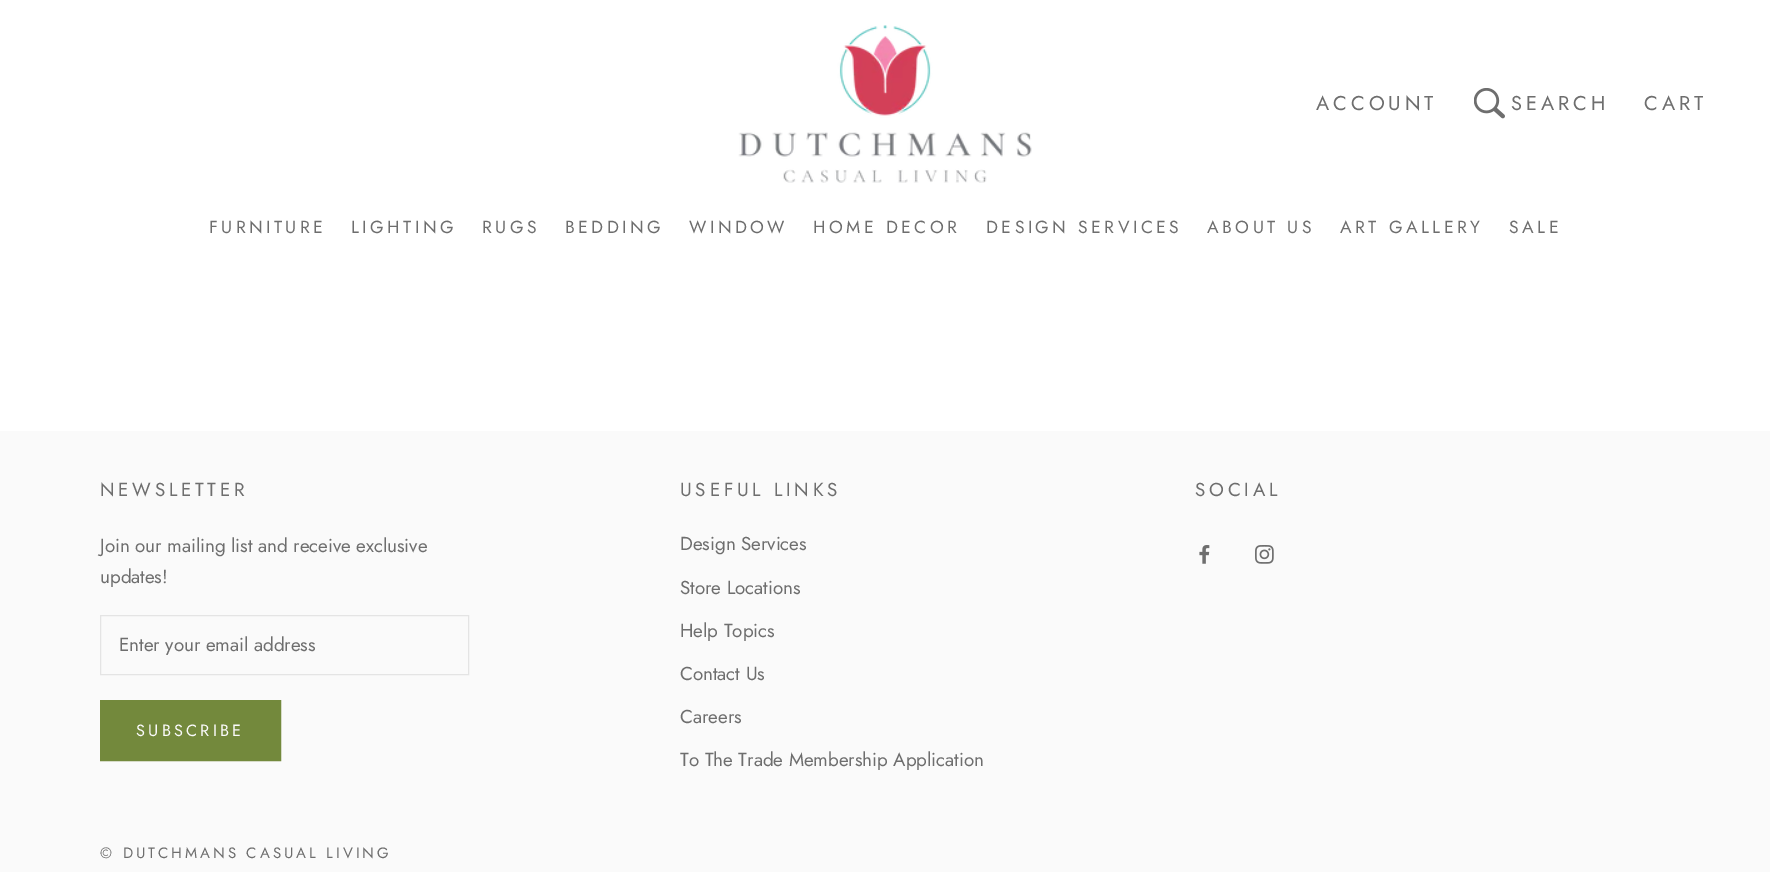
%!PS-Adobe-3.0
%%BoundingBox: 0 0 1770 872
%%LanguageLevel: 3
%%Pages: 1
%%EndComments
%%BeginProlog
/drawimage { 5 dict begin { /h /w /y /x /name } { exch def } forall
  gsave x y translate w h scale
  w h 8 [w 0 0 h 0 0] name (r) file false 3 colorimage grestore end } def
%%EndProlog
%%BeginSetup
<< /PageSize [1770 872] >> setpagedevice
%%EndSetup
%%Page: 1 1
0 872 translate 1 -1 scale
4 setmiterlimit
1 setgray
0 0 1770 872 rectfill
(images/1.raw) 738 25 294 158 drawimage
(images/2.raw) 1474 88 31 31 drawimage
0.98 setgray
0 431 1770 441 rectfill
0.894 setgray
100.5 615.5 368 59 rectstroke
0.451 0.537 0.235 setrgbcolor
100.5 700.5 180 60 rectstroke
101 701 179 59 rectfill
(images/3.raw) 1199 545 11 19 drawimage
(images/4.raw) 1255 545 19 19 drawimage
/Jost-Regular [20 0 0 -20 0 0] selectfont
0.431 setgray
1316 110 moveto 4 0 (ACCOUNT) ashow
1511 110 moveto 4 0 (SEARCH) ashow
1644 110 moveto 4 0 (CART) ashow
/Jost-Regular [17.5 0 0 -17.5 0 0] selectfont
209 233 moveto 3.5 0 (FURNITURE) ashow
351 233 moveto 3.5 0 (LIGHTING) ashow
482 233 moveto 3.5 0 (RUGS) ashow
565 233 moveto 3.5 0 (BEDDING) ashow
689 233 moveto 3.5 0 (WINDOW) ashow
813 233 moveto 3.5 0 (HOME DECOR) ashow
986 233 moveto 3.5 0 (DESIGN SERVICES) ashow
1207 233 moveto 3.5 0 (ABOUT US) ashow
1340 233 moveto 3.5 0 (ART GALLERY) ashow
1509 233 moveto 3.5 0 (SALE) ashow
/Jost-Regular [18.75 0 0 -18.75 0 0] selectfont
100 496 moveto 3.75 0 (NEWSLETTER) ashow
100 552 moveto (Join our mailing list and receive exclusive) show
100 583 moveto (updates!) show
119 651 moveto (Enter your email address) show
/Jost-Regular [16.25 0 0 -16.25 0 0] selectfont
0.98 setgray
136 736 moveto 3.25 0 (SUBSCRIBE) ashow
/Jost-Regular [18.75 0 0 -18.75 0 0] selectfont
0.431 setgray
680 496 moveto 3.75 0 (USEFUL LINKS) ashow
680 550 moveto (Design Services) show
680 594 moveto (Store Locations) show
680 637 moveto (Help Topics) show
680 680 moveto (Contact Us) show
680 723 moveto (Careers) show
680 766 moveto (To The Trade Membership Application) show
1195 496 moveto 3.75 0 (SOCIAL) ashow
/Jost-Regular [15 0 0 -15 0 0] selectfont
100 858 moveto 3 0 (© DUTCHMANS CASUAL LIVING) ashow
showpage
%%EOF
